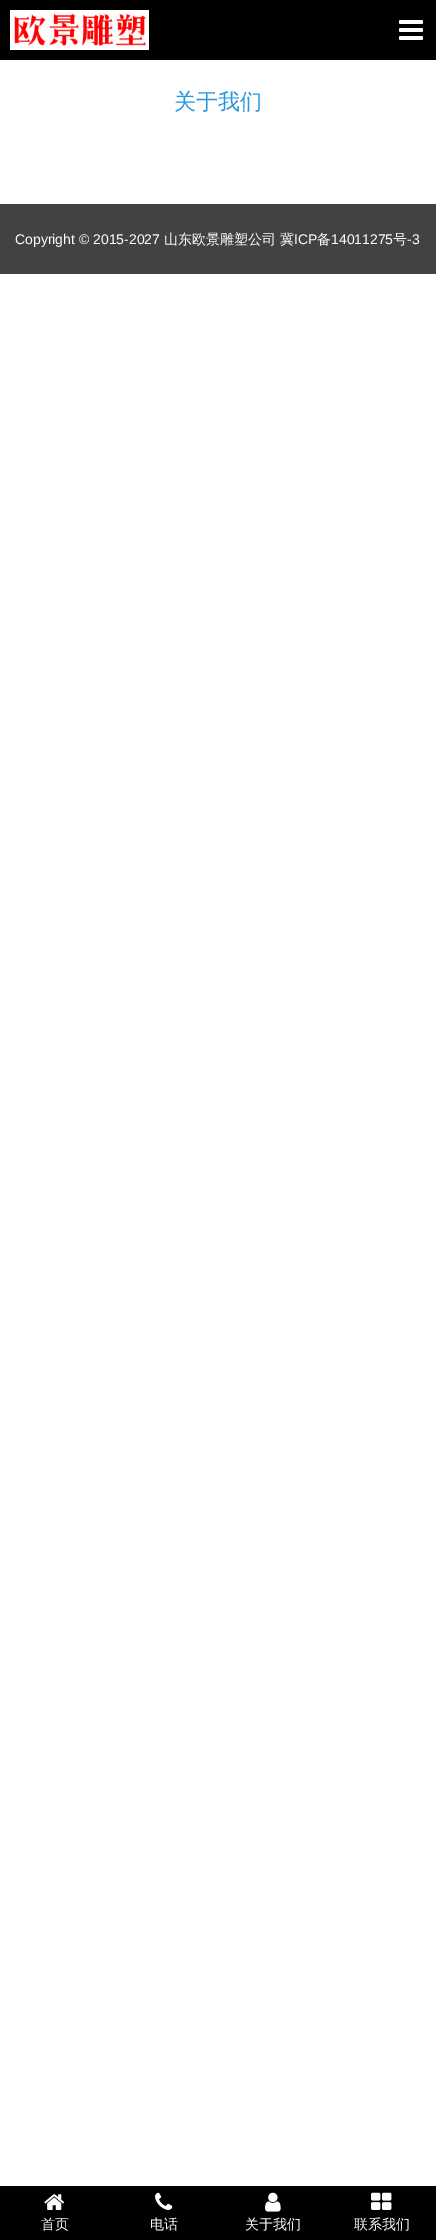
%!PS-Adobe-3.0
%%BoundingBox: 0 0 436 2240
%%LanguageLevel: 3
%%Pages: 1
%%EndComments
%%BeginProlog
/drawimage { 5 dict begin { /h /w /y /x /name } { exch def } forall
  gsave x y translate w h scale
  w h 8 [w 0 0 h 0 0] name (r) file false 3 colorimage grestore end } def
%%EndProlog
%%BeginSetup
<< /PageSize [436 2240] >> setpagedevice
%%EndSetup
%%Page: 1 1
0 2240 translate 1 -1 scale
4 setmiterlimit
1 setgray
0 0 436 2240 rectfill
0 setgray
0 0 436 60 rectfill
(images/1.raw) 10 10 139 40 drawimage
(images/2.raw) 399 20 24 20 drawimage
0.259 setgray
0 204 436 70 rectfill
0 setgray
0 2186 436 54 rectfill
(images/3.raw) 44 2194 21 16 drawimage
(images/4.raw) 155 2192 18 18 drawimage
(images/5.raw) 265 2192 16 20 drawimage
(images/6.raw) 371 2192 21 18 drawimage
/WenQuanYiZenHei-Medium [22 0 0 -22 0 0] selectfont
0.141 0.588 0.875 setrgbcolor
174 109 moveto (关于我们) show
/LiberationSans-Regular [14 0 0 -14 0 0] selectfont
1 setgray
15 244 moveto (Copyright © 2015-2027) show
/WenQuanYiZenHei-Medium [14 0 0 -14 0 0] selectfont
164 244 moveto (山东欧景雕塑公司 冀) show
/LiberationSans-Regular [14 0 0 -14 0 0] selectfont
294 244 moveto (ICP) show
/WenQuanYiZenHei-Medium [14 0 0 -14 0 0] selectfont
317 244 moveto (备) show
/LiberationSans-Regular [14 0 0 -14 0 0] selectfont
331 244 moveto (14011275) show
/WenQuanYiZenHei-Medium [14 0 0 -14 0 0] selectfont
393 244 moveto (号) show
/LiberationSans-Regular [14 0 0 -14 0 0] selectfont
407 244 moveto (-3) show
/WenQuanYiZenHei-Medium [14 0 0 -14 0 0] selectfont
41 2229 moveto (首页) show
150 2229 moveto (电话) show
245 2229 moveto (关于我们) show
354 2229 moveto (联系我们) show
showpage
%%EOF
